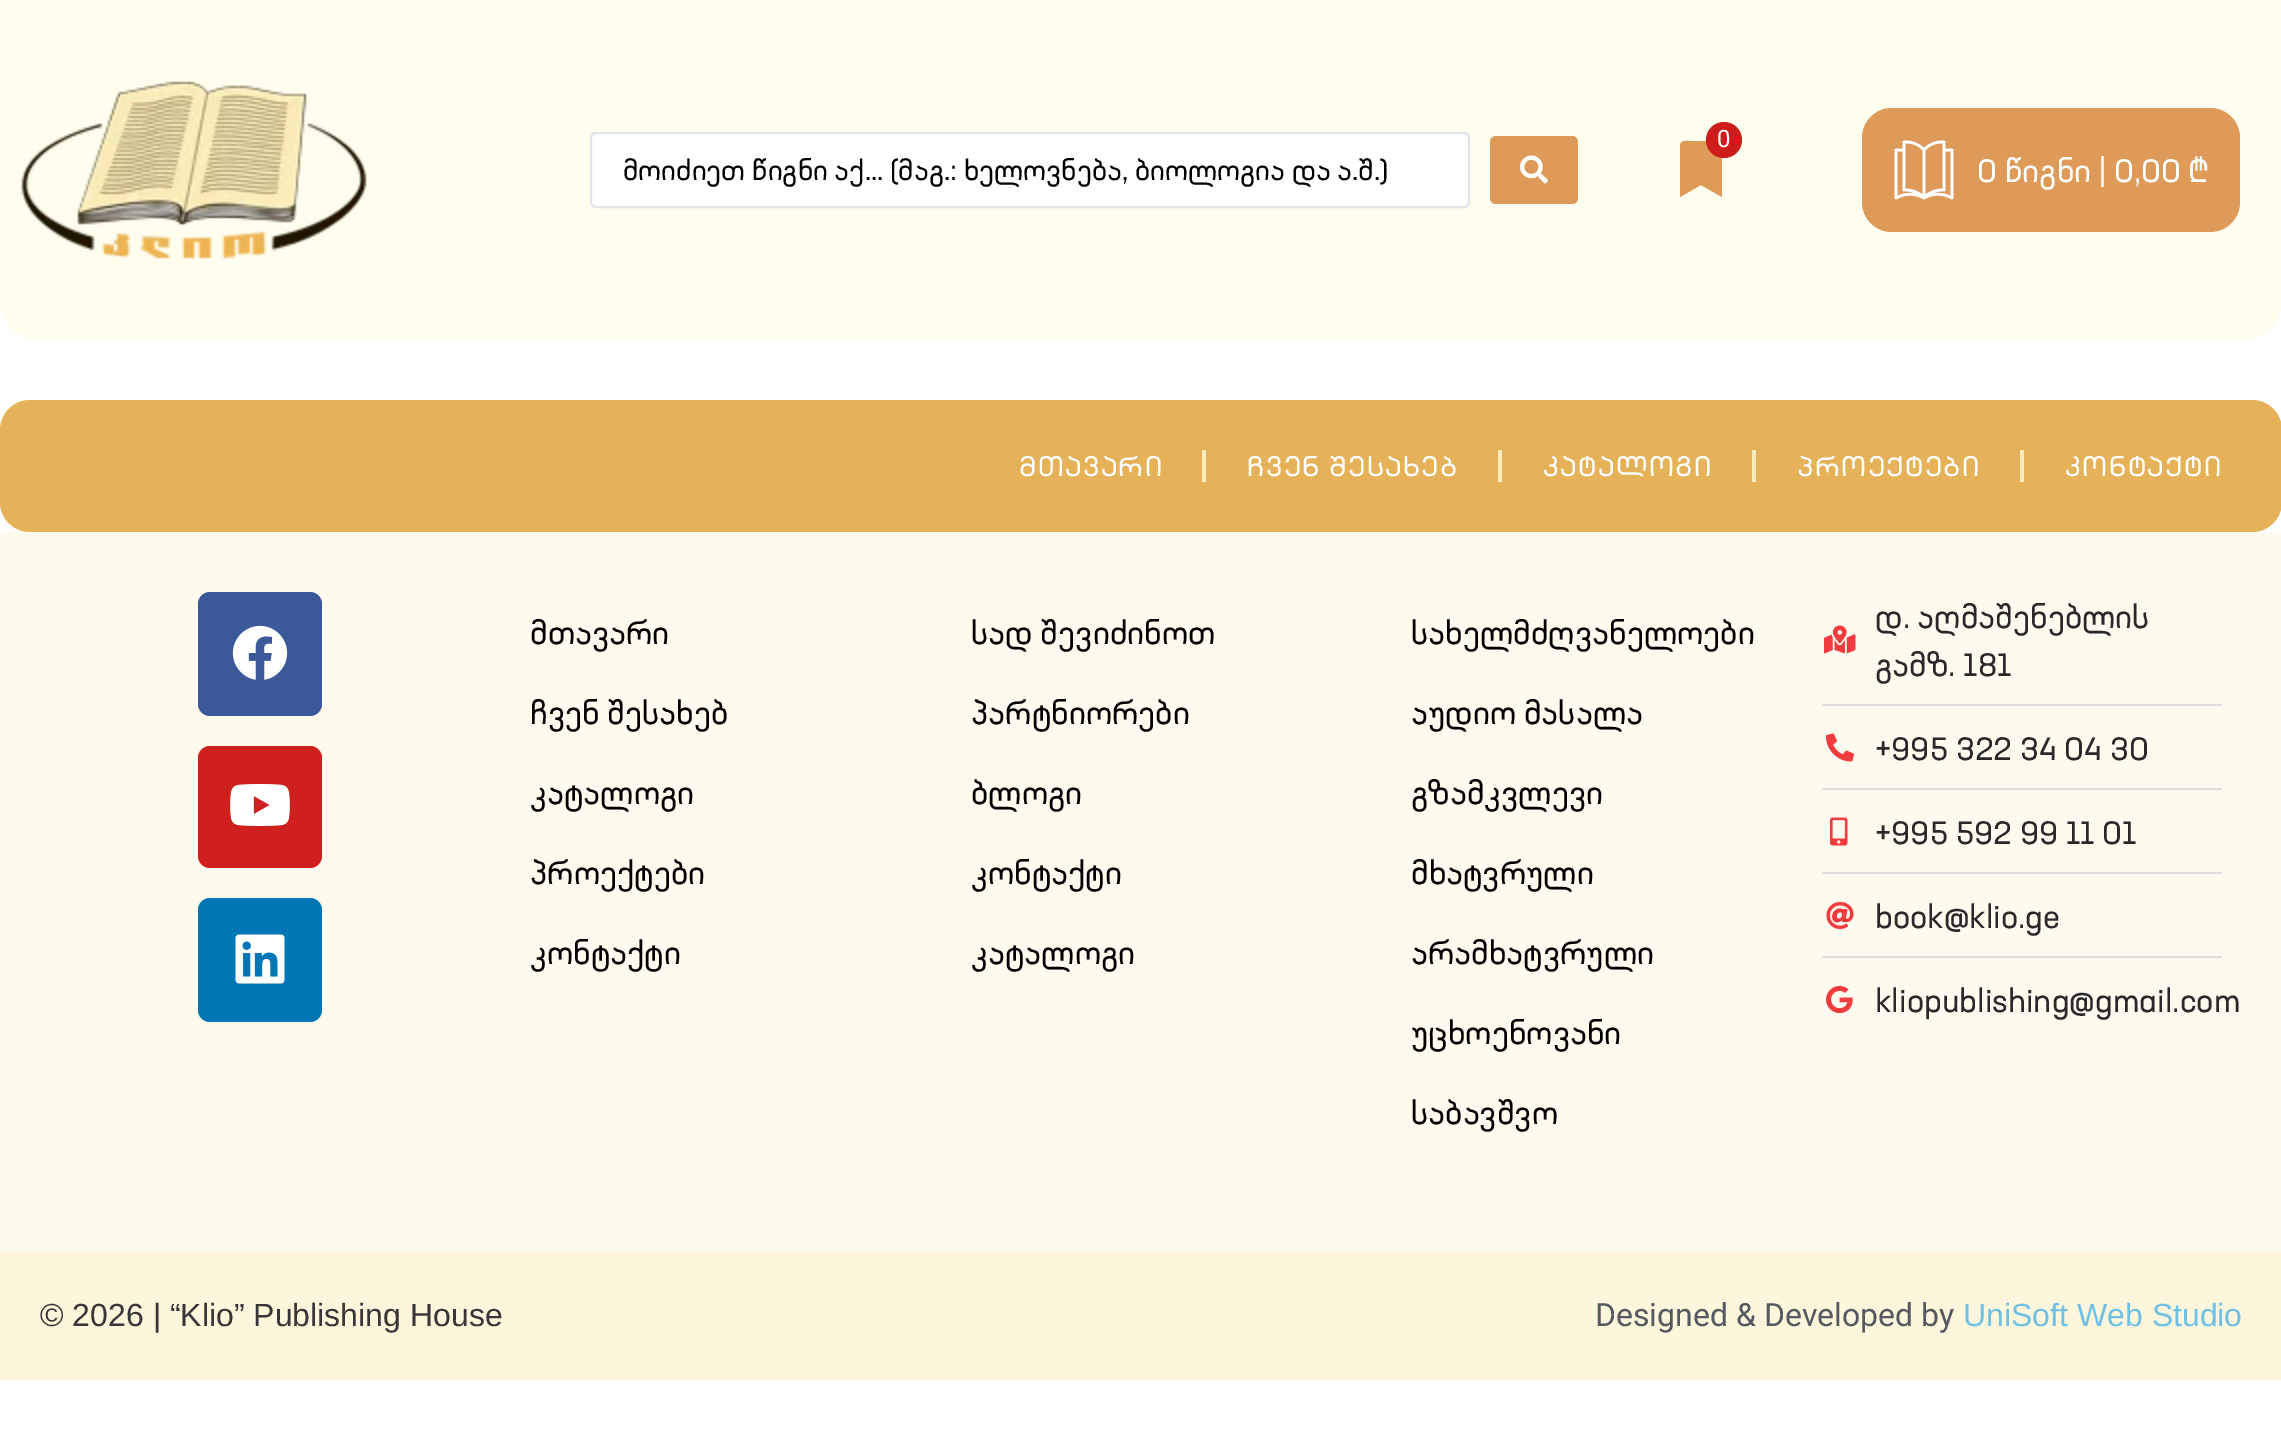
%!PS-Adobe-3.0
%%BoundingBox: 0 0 2281 1448
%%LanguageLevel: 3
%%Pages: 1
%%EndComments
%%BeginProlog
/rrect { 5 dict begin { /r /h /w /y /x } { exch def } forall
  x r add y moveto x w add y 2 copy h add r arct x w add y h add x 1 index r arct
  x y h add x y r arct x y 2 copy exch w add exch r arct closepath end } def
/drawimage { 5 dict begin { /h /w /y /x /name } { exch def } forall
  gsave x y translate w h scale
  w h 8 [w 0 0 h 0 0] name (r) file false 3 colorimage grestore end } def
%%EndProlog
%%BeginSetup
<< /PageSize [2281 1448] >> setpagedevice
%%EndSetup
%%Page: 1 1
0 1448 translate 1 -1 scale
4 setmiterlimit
1 setgray
0 0 2281 1448 rectfill
1 0.992 0.933 setrgbcolor
newpath 0 0 moveto 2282 0 lineto 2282 300 lineto 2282 322 2264 340 2242 340 curveto 40 340 lineto 18 340 0 322 0 300 curveto closepath fill
(images/1.raw) 21 81 346 178 drawimage
0.867 0.604 0.349 setrgbcolor
newpath 1680 197 moveto 1680 145 lineto 1681 140 1687 141 1690 141 curveto 1712 141 lineto 1715 141 1721 140 1722 145 curveto 1722 197 lineto 1701 185 lineto closepath fill
0.808 0.106 0.106 setrgbcolor
newpath 1724 140 18 0 360 arc closepath fill
1 setgray
591 133 878 74 5 rrect gsave fill grestore
0.882 0.898 0.922 setrgbcolor
2 setlinewidth
stroke
0.867 0.604 0.349 setrgbcolor
1490 136 88 68 6 rrect fill
(images/2.raw) 1520 155 28 29 drawimage
1862 108 378 124 30 rrect fill
(images/3.raw) 1894 140 60 60 drawimage
0.902 0.698 0.349 setrgbcolor
newpath 30 400 moveto 760 400 lineto 760 532 lineto 30 532 lineto 13.5 532 0 518.5 0 502 curveto 0 430 lineto 0 413.5 13.5 400 30 400 curveto closepath fill
newpath 760 400 moveto 2252 400 lineto 2268.5 400 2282 413.5 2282 430 curveto 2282 502 lineto 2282 518.5 2268.5 532 2252 532 curveto 760 532 lineto closepath fill
0.98 0.922 0.725 setrgbcolor
1202 450 4 32 rectfill
1498 450 4 32 rectfill
1752 450 4 32 rectfill
2020 450 4 32 rectfill
0.996 0.984 0.933 setrgbcolor
0 532 2281 720 rectfill
0.231 0.349 0.596 setrgbcolor
198 592 124 124 12 rrect fill
(images/4.raw) 232 625 56 55 drawimage
0.804 0.125 0.122 setrgbcolor
198 746 124 122 12 rrect fill
(images/5.raw) 230 784 60 42 drawimage
0 0.467 0.71 setrgbcolor
198 898 124 124 12 rrect fill
(images/6.raw) 235 934 50 50 drawimage
(images/7.raw) 1824 625 32 29 drawimage
0.867 setgray
1822 704 400 2 rectfill
(images/8.raw) 1826 733 28 29 drawimage
1822 788 400 2 rectfill
(images/9.raw) 1830 817 18 29 drawimage
1822 872 400 2 rectfill
(images/10.raw) 1826 901 28 29 drawimage
1822 956 400 2 rectfill
(images/11.raw) 1826 985 27 29 drawimage
0.992 0.961 0.863 setrgbcolor
0 1252 2281 128 rectfill
/Roboto-Regular [24 0 0 -24 0 0] selectfont
1 setgray
1717 147 moveto (0) show
/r-Regular [28 0 0 -28 0 0] selectfont
0 setgray
623 180 moveto (მოიძიეთ წიგნი აქ... \(მაგ.: ხელოვნება, ბიოლოგია და ა.შ.\)) show
/r-Regular [32 0 0 -32 0 0] selectfont
1 setgray
1977 182 moveto (0 წიგნი | 0,00 ₾) show
/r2-Regular [28 0 0 -28 0 0] selectfont
1019 476 moveto 1.4 0 (მთავარი) ashow
1247 476 moveto 1.4 0 (ჩვენ შესახებ) ashow
1543 476 moveto 1.4 0 (კატალოგი) ashow
1797 476 moveto 1.4 0 (პროექტები) ashow
2065 476 moveto 1.4 0 (კონტაქტი) ashow
/r-Regular [32 0 0 -32 0 0] selectfont
0 setgray
530 644 moveto (მთავარი) show
530 724 moveto (ჩვენ შესახებ) show
530 804 moveto (კატალოგი) show
530 884 moveto (პროექტები) show
530 964 moveto (კონტაქტი) show
971 644 moveto (სად შევიძინოთ) show
971 724 moveto (პარტნიორები) show
971 804 moveto (ბლოგი) show
971 884 moveto (კონტაქტი) show
971 964 moveto (კატალოგი) show
1411 644 moveto (სახელმძღვანელოები) show
1411 724 moveto (აუდიო მასალა) show
1411 804 moveto (გზამკვლევი) show
1411 884 moveto (მხატვრული) show
1411 964 moveto (არამხატვრული) show
1411 1044 moveto (უცხოენოვანი) show
1411 1124 moveto (საბავშვო) show
0.161 setgray
1875 628 moveto (დ. აღმაშენებლის) show
1875 676 moveto (გამზ. 181) show
1875 760 moveto (+995 322 34 04 30) show
1875 844 moveto (+995 592 99 11 01) show
1875 928 moveto (book@klio.ge) show
1875 1012 moveto (kliopublishing@gmail.com) show
/LiberationSans-Regular [32 0 0 -32 0 0] selectfont
0.22 0.212 0.212 setrgbcolor
40 1326 moveto (© 2026 | “Klio” Publishing House) show
/Roboto-Regular [32 0 0 -32 0 0] selectfont
0.329 0.349 0.373 setrgbcolor
1595 1326 moveto (Designed & Developed by) show
/LiberationSans-Regular [32 0 0 -32 0 0] selectfont
0.431 0.757 0.894 setrgbcolor
1963 1326 moveto (UniSoft Web Studio) show
showpage
%%EOF
